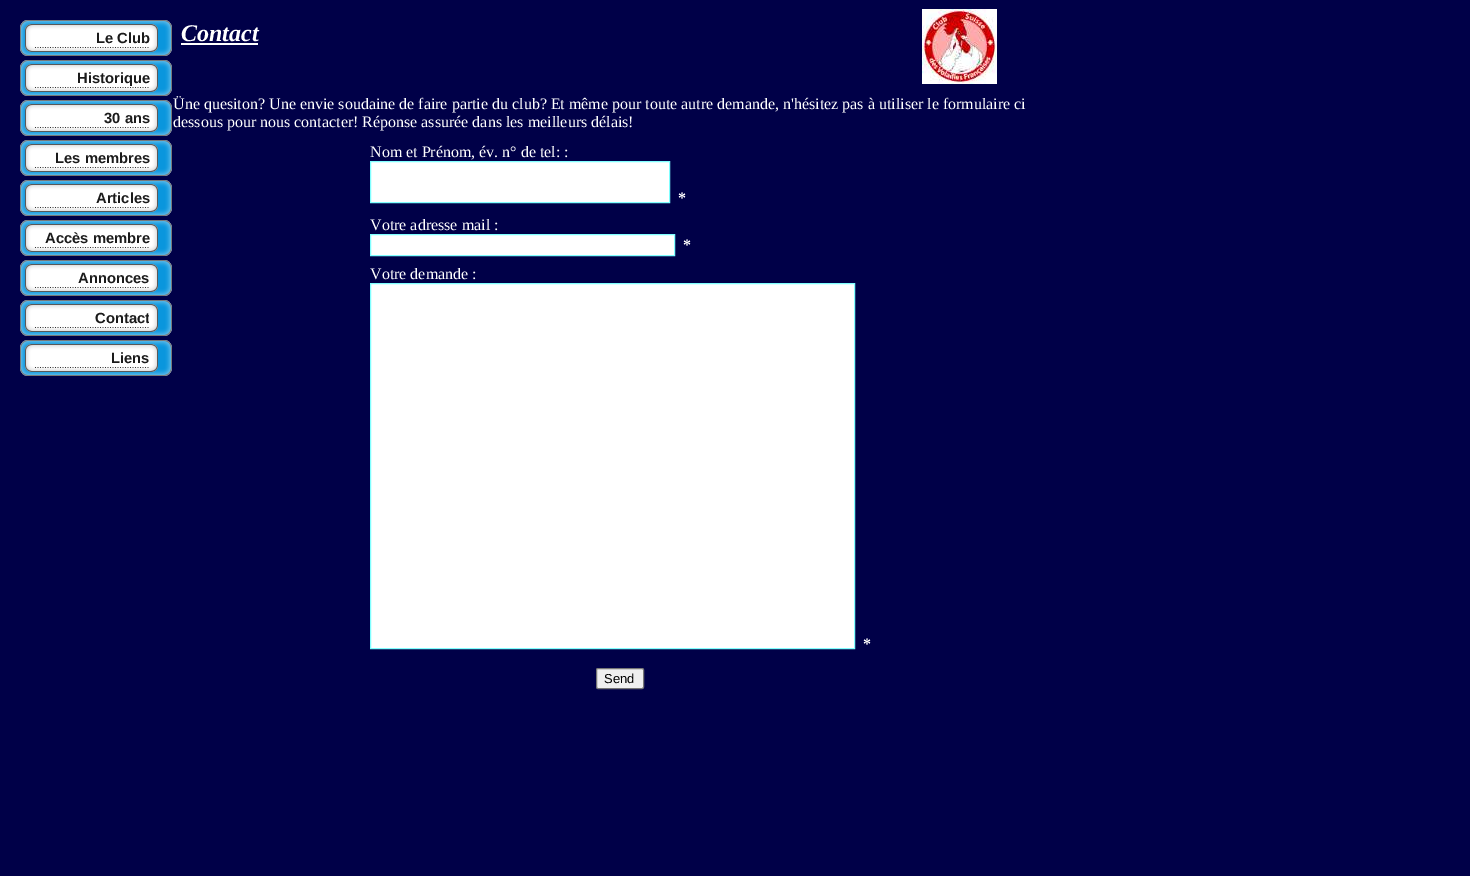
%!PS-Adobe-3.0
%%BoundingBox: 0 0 1470 876
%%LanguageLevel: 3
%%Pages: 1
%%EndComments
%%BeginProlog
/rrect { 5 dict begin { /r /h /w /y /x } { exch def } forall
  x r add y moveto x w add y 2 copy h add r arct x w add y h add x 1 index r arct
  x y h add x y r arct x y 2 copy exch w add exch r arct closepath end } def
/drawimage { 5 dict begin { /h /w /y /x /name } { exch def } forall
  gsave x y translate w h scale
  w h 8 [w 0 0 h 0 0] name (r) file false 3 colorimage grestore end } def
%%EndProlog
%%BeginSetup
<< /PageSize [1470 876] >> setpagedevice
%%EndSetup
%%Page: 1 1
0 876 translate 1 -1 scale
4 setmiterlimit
0 0 0.282 setrgbcolor
0 0 1470 876 rectfill
(images/1.raw) 20 20 25 36 drawimage
(images/2.raw) 45 20 104 36 drawimage
(images/3.raw) 149 20 23 36 drawimage
(images/1.raw) 20 60 25 36 drawimage
(images/2.raw) 45 60 104 36 drawimage
(images/3.raw) 149 60 23 36 drawimage
(images/1.raw) 20 100 25 36 drawimage
(images/2.raw) 45 100 104 36 drawimage
(images/3.raw) 149 100 23 36 drawimage
(images/1.raw) 20 140 25 36 drawimage
(images/2.raw) 45 140 104 36 drawimage
(images/3.raw) 149 140 23 36 drawimage
(images/1.raw) 20 180 25 36 drawimage
(images/2.raw) 45 180 104 36 drawimage
(images/3.raw) 149 180 23 36 drawimage
(images/1.raw) 20 220 25 36 drawimage
(images/2.raw) 45 220 104 36 drawimage
(images/3.raw) 149 220 23 36 drawimage
(images/1.raw) 20 260 25 36 drawimage
(images/2.raw) 45 260 104 36 drawimage
(images/3.raw) 149 260 23 36 drawimage
(images/1.raw) 20 300 25 36 drawimage
(images/2.raw) 45 300 104 36 drawimage
(images/1.raw) 20 340 25 36 drawimage
(images/2.raw) 45 340 104 36 drawimage
(images/3.raw) 149 340 23 36 drawimage
1 setgray
181 43 77 2 rectfill
(images/4.raw) 922 9 75 75 drawimage
newpath 370.5 161.5 moveto 669.5 161.5 lineto 669.5 202.5 lineto 370.5 202.5 lineto closepath gsave fill grestore
0.502 1 1 setrgbcolor
stroke
1 setgray
newpath 370.5 234.5 moveto 674.5 234.5 lineto 674.5 255.5 lineto 370.5 255.5 lineto closepath gsave fill grestore
0.502 1 1 setrgbcolor
stroke
1 setgray
newpath 370.5 283.5 moveto 854.5 283.5 lineto 854.5 648.5 lineto 370.5 648.5 lineto closepath gsave fill grestore
0.502 1 1 setrgbcolor
stroke
0.937 setgray
596.5 668.5 47 20 1.5 rrect gsave fill grestore
0.463 setgray
stroke
/LiberationSans-Bold [14.75 0 0 -14.75 0 0] selectfont
0.106 setgray
96 43 moveto (Le Club) show
77 83 moveto (Historique) show
104 123 moveto (30 ans) show
55 163 moveto (Les membres) show
96 203 moveto (Articles) show
45 243 moveto (Accès membre) show
78 283 moveto (Annonces) show
95 323 moveto (Contact) show
(images/3.raw) 149 300 23 36 drawimage
111 363 moveto (Liens) show
/LiberationSerif-BoldItalic [24 0 0 -24 0 0] selectfont
1 setgray
181 41 moveto (Contact) show
/LiberationSerif-Regular [16 0 0 -16 0 0] selectfont
173 109 moveto (Üne quesiton? Une envie soudaine de faire partie du club? Et même pour toute autre demande, n'hésitez pas à utiliser le formulaire ci) show
173 127 moveto (dessous pour nous contacter! Réponse assurée dans les meilleurs délais!) show
370 157 moveto (Nom et Prénom, év. n° de tel: :) show
/LiberationSerif-Bold [16 0 0 -16 0 0] selectfont
678 203 moveto (*) show
/LiberationSerif-Regular [16 0 0 -16 0 0] selectfont
370 230 moveto (Votre adresse mail :) show
/LiberationSerif-Bold [16 0 0 -16 0 0] selectfont
683 250 moveto (*) show
/LiberationSerif-Regular [16 0 0 -16 0 0] selectfont
370 279 moveto (Votre demande :) show
/LiberationSerif-Bold [16 0 0 -16 0 0] selectfont
863 649 moveto (*) show
/LiberationSans-Regular [13 0 0 -13 0 0] selectfont
0 setgray
604 683 moveto (Send) show
showpage
%%EOF
